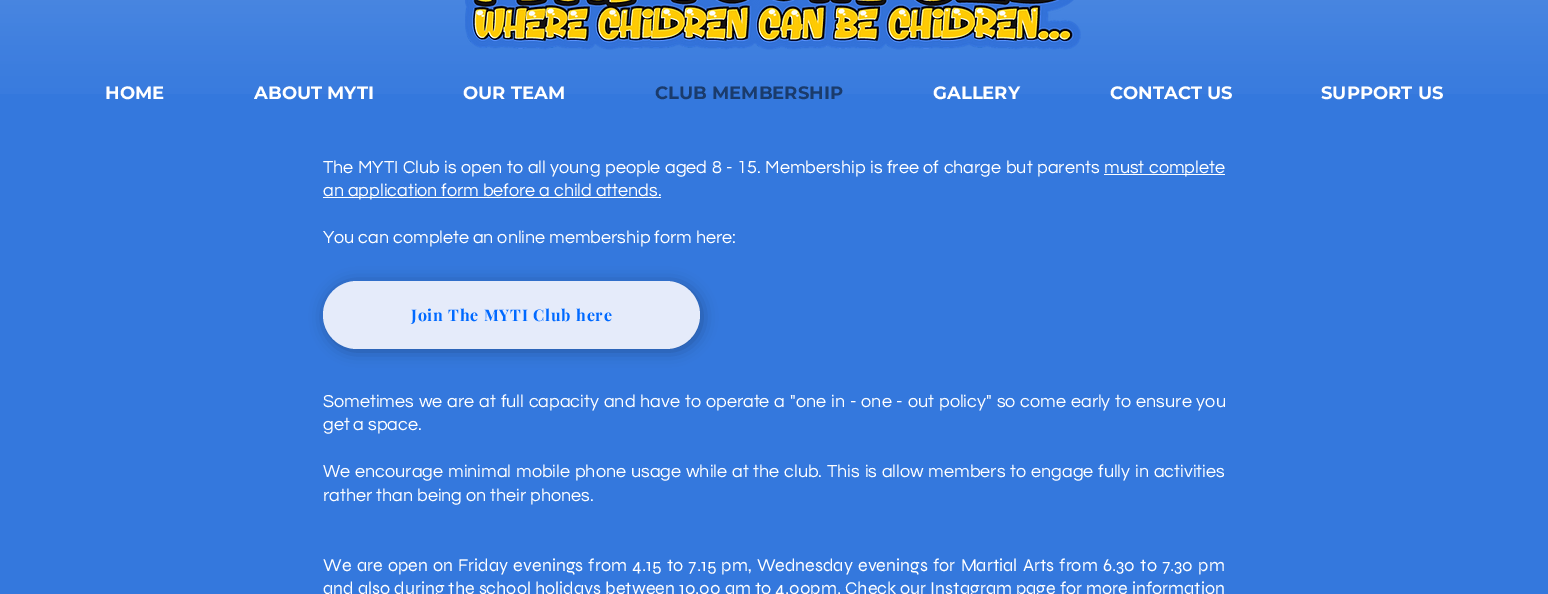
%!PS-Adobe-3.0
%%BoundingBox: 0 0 1548 594
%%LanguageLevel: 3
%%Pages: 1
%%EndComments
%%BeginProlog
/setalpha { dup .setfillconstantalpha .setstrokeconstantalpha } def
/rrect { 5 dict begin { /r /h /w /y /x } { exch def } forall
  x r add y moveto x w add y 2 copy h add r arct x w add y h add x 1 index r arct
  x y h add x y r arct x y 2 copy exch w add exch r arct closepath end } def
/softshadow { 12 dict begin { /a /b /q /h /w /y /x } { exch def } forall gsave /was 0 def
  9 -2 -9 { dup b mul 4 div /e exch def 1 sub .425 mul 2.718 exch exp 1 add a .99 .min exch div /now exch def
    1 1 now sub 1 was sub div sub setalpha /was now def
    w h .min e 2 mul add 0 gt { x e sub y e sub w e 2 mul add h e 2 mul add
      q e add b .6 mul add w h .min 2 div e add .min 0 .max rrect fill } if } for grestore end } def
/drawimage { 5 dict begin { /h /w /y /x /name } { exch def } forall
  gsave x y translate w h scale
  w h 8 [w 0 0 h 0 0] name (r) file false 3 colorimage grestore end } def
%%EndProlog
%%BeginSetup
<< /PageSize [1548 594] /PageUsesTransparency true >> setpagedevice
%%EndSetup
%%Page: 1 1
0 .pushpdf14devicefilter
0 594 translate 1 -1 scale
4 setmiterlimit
0.204 0.471 0.867 setrgbcolor
0 0 1548 594 rectfill
(images/1.raw) 0 0 1548 94 drawimage
(images/2.raw) 465 0 616 50 drawimage
1 setgray
1104 174 121 1 rectfill
323 197 338 1 rectfill
0 setgray
325 283 377 68 34 7.5 0.29 softshadow
0.898 0.922 0.98 setrgbcolor
323 281 377 68 34 rrect fill
/Montserrat-Bold [18 0 0 -18 0 0] selectfont
1 setgray
105 99 moveto (HOME) show
254 99 moveto (ABOUT MYTI) show
463 99 moveto (OUR TEAM) show
0.102 0.231 0.424 setrgbcolor
655 99 moveto (CLUB MEMBERSHIP) show
1 setgray
933 99 moveto (GALLERY) show
1110 99 moveto (CONTACT US) show
1321 99 moveto (SUPPORT US) show
/Questrial-Regular [18 0 0 -18 0 0] selectfont
323 173 moveto 0.75 0 32 (The MYTI Club is open to all young people aged 8 - 15. Membership is free of charge but parents) widthshow
1104 173 moveto 0.75 0 32 (must complete) widthshow
323 196 moveto (an application form before a child attends.) show
323 243 moveto (You can complete an online membership form here:) show
323 407 moveto 1.1 0 32 (Sometimes we are at full capacity and have to operate a "one in - one - out policy" so come early to ensure you) widthshow
323 430 moveto (get a space.) show
323 477 moveto 1 0 32 (We encourage minimal mobile phone usage while at the club. This is allow members to engage fully in activities) widthshow
323 501 moveto (rather than being on their phones.) show
/PlayfairDisplay-Bold [16 0 0 -16 0 0] selectfont
0 0.412 1 setrgbcolor
411 321 moveto 0.8 0 (Join The MYTI Club here) ashow
/Syne-Regular [18 0 0 -18 0 0] selectfont
1 setgray
323 571 moveto 1.5 0 32 (We are open on Friday evenings from 4.15 to 7.15 pm, Wednesday evenings for Martial Arts from 6.30 to 7.30 pm) widthshow
323 594 moveto 0.25 0 32 (and also during the school holidays between 10.00 am to 4.00pm. Check our Instagram page for more information) widthshow
.poppdf14devicefilter showpage
%%EOF
